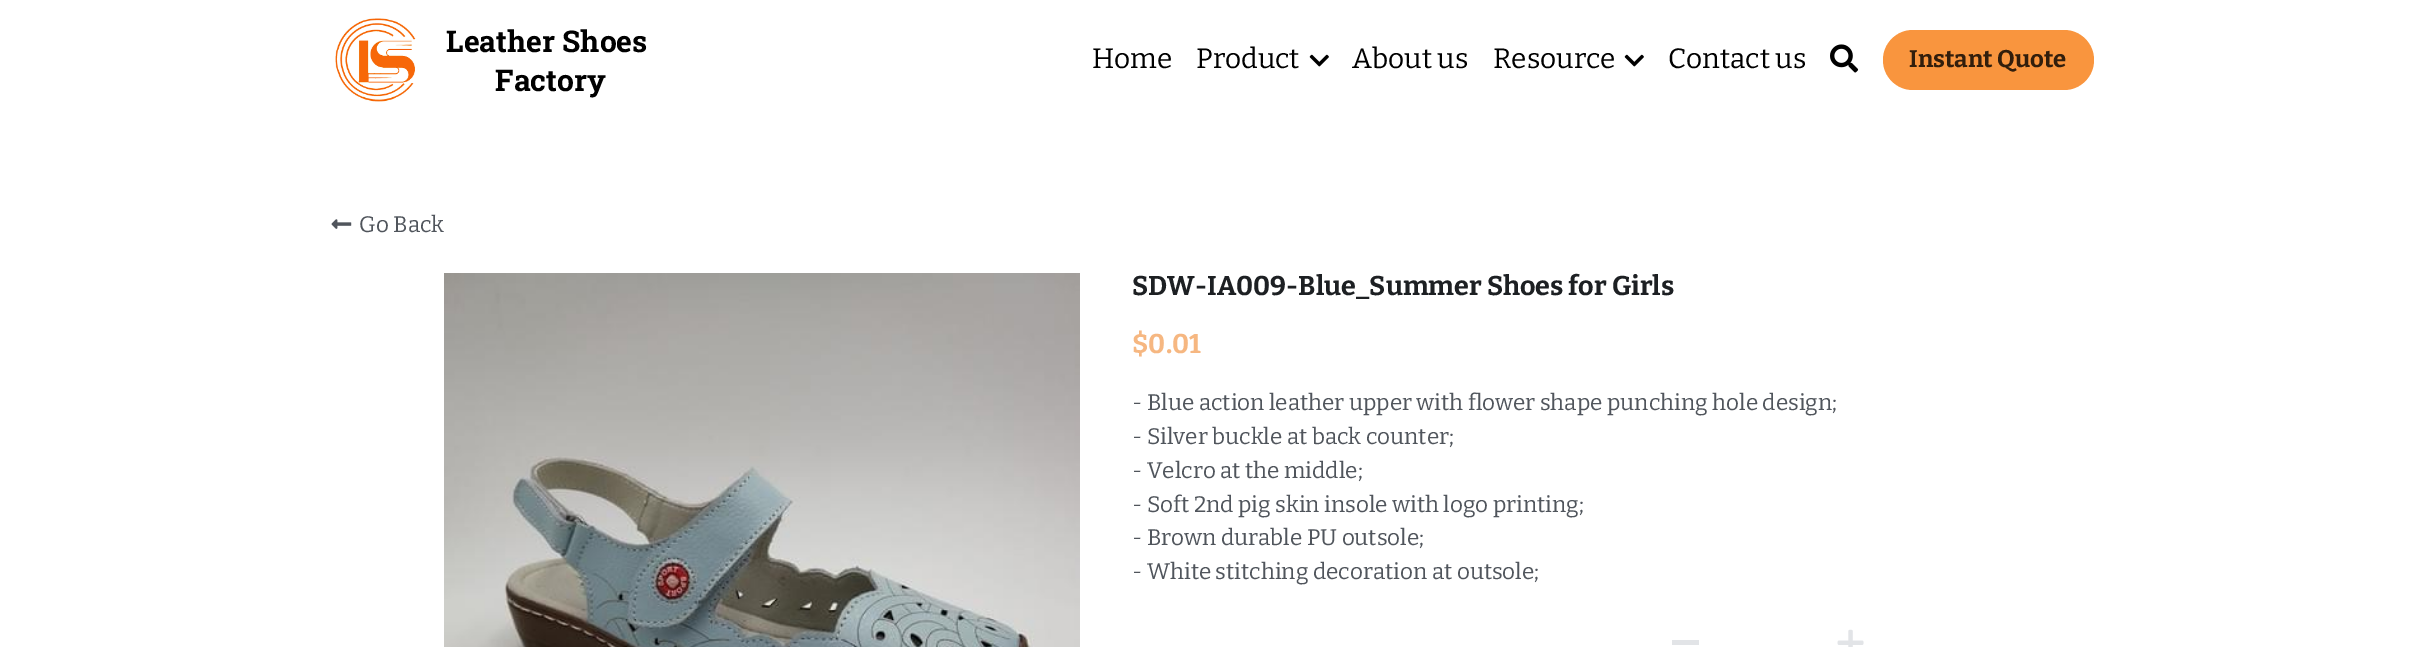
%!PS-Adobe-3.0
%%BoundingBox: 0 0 2425 647
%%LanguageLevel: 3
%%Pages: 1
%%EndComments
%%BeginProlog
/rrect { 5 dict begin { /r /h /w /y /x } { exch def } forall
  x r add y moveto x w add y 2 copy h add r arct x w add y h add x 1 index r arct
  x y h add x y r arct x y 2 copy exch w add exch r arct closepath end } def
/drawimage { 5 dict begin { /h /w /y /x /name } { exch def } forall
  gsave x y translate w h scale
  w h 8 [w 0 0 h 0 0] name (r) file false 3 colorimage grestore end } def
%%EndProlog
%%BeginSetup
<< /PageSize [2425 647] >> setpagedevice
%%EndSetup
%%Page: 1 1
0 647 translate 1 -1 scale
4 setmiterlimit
1 setgray
0 0 2425 647 rectfill
(images/1.raw) 335 18 81 84 drawimage
(images/2.raw) 1309 54 20 13 drawimage
(images/2.raw) 1624 54 20 13 drawimage
(images/3.raw) 1830 44 29 29 drawimage
0.976 0.584 0.243 setrgbcolor
1883 30 211 60 30 rrect fill
(images/4.raw) 331 219 21 10 drawimage
(images/5.raw) 444 273 636 374 drawimage
0.886 0.894 0.906 setrgbcolor
1672 640 27 5 rectfill
(images/6.raw) 1837 629 27 18 drawimage
/RobotoSlab-Bold [30 0 0 -30 0 0] selectfont
0 setgray
446 52 moveto (Leather Shoes) show
495 91 moveto (Factory) show
/Bitter-Regular [28 0 0 -28 0 0] selectfont
1092 68 moveto (Home) show
1196 68 moveto (Product) show
1352 68 moveto (About us) show
1493 68 moveto (Resource) show
1668 68 moveto (Contact us) show
/Bitter-Bold [24 0 0 -24 0 0] selectfont
0.196 0.118 0.047 setrgbcolor
1909 67 moveto (Instant Quote) show
/Bitter-Regular [22.5 0 0 -22.5 0 0] selectfont
0.314 0.333 0.361 setrgbcolor
359 232 moveto (Go Back) show
/Bitter-Bold [27 0 0 -27 0 0] selectfont
0.114 0.125 0.137 setrgbcolor
1132 295 moveto (SDW-IA009-Blue_Summer Shoes for Girls) show
0.965 0.718 0.506 setrgbcolor
1132 353 moveto ($0.01) show
/Bitter-Regular [22.5 0 0 -22.5 0 0] selectfont
0.314 0.333 0.361 setrgbcolor
1132 410 moveto (- Blue action leather upper with flower shape punching hole design;) show
1132 444 moveto (- Silver buckle at back counter;) show
1132 478 moveto (- Velcro at the middle;) show
1132 512 moveto (- Soft 2nd pig skin insole with logo printing;) show
1132 545 moveto (- Brown durable PU outsole;) show
1132 579 moveto (- White stitching decoration at outsole;) show
showpage
%%EOF
